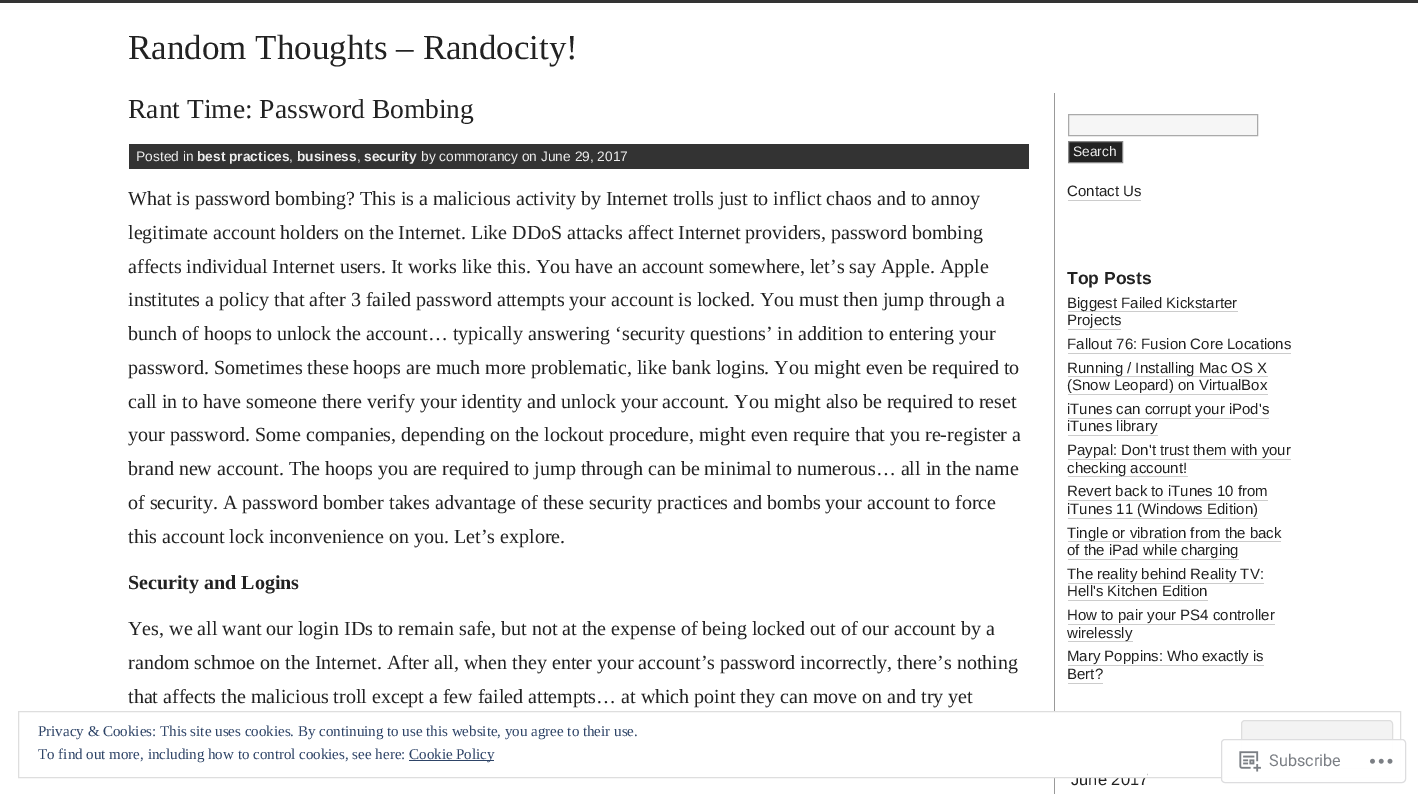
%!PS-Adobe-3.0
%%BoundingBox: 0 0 1418 794
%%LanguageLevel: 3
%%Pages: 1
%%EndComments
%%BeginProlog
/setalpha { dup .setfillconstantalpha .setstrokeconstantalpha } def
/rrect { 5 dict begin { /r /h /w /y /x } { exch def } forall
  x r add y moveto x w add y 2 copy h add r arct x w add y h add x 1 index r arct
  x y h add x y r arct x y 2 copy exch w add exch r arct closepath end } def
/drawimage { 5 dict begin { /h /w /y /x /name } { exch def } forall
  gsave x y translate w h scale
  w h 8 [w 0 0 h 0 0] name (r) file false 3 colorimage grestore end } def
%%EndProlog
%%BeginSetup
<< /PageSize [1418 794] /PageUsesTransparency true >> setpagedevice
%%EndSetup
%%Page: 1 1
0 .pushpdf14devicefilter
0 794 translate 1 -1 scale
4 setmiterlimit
1 setgray
0 0 1418 794 rectfill
0.2 setgray
0 0 1418 3 rectfill
129 144 900 25 rectfill
0.6 setgray
1054 93 1 701 rectfill
0.965 setgray
newpath 1068.5 114.5 moveto 1257.5 114.5 lineto 1257.5 135.5 lineto 1068.5 135.5 lineto closepath gsave fill grestore
0.667 setgray
stroke
0.133 setgray
newpath 1068.5 141.5 moveto 1122.5 141.5 lineto 1122.5 162.5 lineto 1068.5 162.5 lineto closepath gsave fill grestore
0.533 setgray
stroke
0.8 setgray
1068 200 73 1 rectfill
1068 311 170 1 rectfill
1068 329 53 1 rectfill
1068 353 223 1 rectfill
1068 376 200 1 rectfill
1068 394 200 1 rectfill
1068 418 201 1 rectfill
1068 435 90 1 rectfill
1068 459 223 1 rectfill
1068 476 120 1 rectfill
1068 500 200 1 rectfill
1068 518 190 1 rectfill
1068 541 213 1 rectfill
1068 559 171 1 rectfill
1068 583 196 1 rectfill
1068 600 140 1 rectfill
1068 624 207 1 rectfill
1068 641 65 1 rectfill
1068 665 196 1 rectfill
1068 683 35 1 rectfill
/LiberationSerif-Regular [35 0 0 -35 0 0] selectfont
0.133 setgray
128 59 moveto (Random Thoughts – Randocity!) show
/LiberationSerif-Regular [27.5 0 0 -27.5 0 0] selectfont
128 118 moveto (Rant Time: Password Bombing) show
/LiberationSans-Regular [13.75 0 0 -13.75 0 0] selectfont
0.933 setgray
136 161 moveto (Posted in) show
/LiberationSans-Bold [13.75 0 0 -13.75 0 0] selectfont
197 161 moveto (best practices) show
/LiberationSans-Regular [13.75 0 0 -13.75 0 0] selectfont
289 161 moveto (,) show
/LiberationSans-Bold [13.75 0 0 -13.75 0 0] selectfont
297 161 moveto (business) show
/LiberationSans-Regular [13.75 0 0 -13.75 0 0] selectfont
357 161 moveto (,) show
/LiberationSans-Bold [13.75 0 0 -13.75 0 0] selectfont
364 161 moveto (security) show
/LiberationSans-Regular [13.75 0 0 -13.75 0 0] selectfont
421 161 moveto (by commorancy on June 29, 2017) show
/LiberationSerif-Regular [20 0 0 -20 0 0] selectfont
0.133 setgray
128 205 moveto (What is password bombing? This is a malicious activity by Internet trolls just to inflict chaos and to annoy) show
128 239 moveto (legitimate account holders on the Internet. Like DDoS attacks affect Internet providers, password bombing) show
128 273 moveto (affects individual Internet users. It works like this. You have an account somewhere, let’s say Apple. Apple) show
128 306 moveto (institutes a policy that after 3 failed password attempts your account is locked. You must then jump through a) show
128 340 moveto (bunch of hoops to unlock the account… typically answering ‘security questions’ in addition to entering your) show
128 374 moveto (password. Sometimes these hoops are much more problematic, like bank logins. You might even be required to) show
128 408 moveto (call in to have someone there verify your identity and unlock your account. You might also be required to reset) show
128 441 moveto (your password. Some companies, depending on the lockout procedure, might even require that you re-register a) show
128 475 moveto (brand new account. The hoops you are required to jump through can be minimal to numerous… all in the name) show
128 509 moveto (of security. A password bomber takes advantage of these security practices and bombs your account to force) show
128 543 moveto (this account lock inconvenience on you. Let’s explore.) show
/LiberationSerif-Bold [20 0 0 -20 0 0] selectfont
128 589 moveto (Security and Logins) show
/LiberationSerif-Regular [20 0 0 -20 0 0] selectfont
128 635 moveto (Yes, we all want our login IDs to remain safe, but not at the expense of being locked out of our account by a) show
128 669 moveto (random schmoe on the Internet. After all, when they enter your account’s password incorrectly, there’s nothing) show
128 703 moveto (that affects the malicious troll except a few failed attempts… at which point they can move on and try yet) show
/LiberationSans-Regular [13.75 0 0 -13.75 0 0] selectfont
0.933 setgray
1073 156 moveto (Search) show
/LiberationSans-Regular [15 0 0 -15 0 0] selectfont
0.133 setgray
1067 196 moveto (Contact Us) show
/LiberationSans-Bold [17.5 0 0 -17.5 0 0] selectfont
1067 284 moveto (Top Posts) show
/LiberationSans-Regular [15 0 0 -15 0 0] selectfont
1067 308 moveto (Biggest Failed Kickstarter) show
1067 325 moveto (Projects) show
1067 349 moveto (Fallout 76: Fusion Core Locations) show
1067 373 moveto (Running / Installing Mac OS X) show
1067 390 moveto (\(Snow Leopard\) on VirtualBox) show
1067 414 moveto (iTunes can corrupt your iPod's) show
1067 431 moveto (iTunes library) show
1067 455 moveto (Paypal: Don't trust them with your) show
1067 473 moveto (checking account!) show
1067 496 moveto (Revert back to iTunes 10 from) show
1067 514 moveto (iTunes 11 \(Windows Edition\)) show
1067 538 moveto (Tingle or vibration from the back) show
1067 555 moveto (of the iPad while charging) show
1067 579 moveto (The reality behind Reality TV:) show
1067 596 moveto (Hell's Kitchen Edition) show
1067 620 moveto (How to pair your PS4 controller) show
1067 638 moveto (wirelessly) show
1067 661 moveto (Mary Poppins: Who exactly is) show
1067 679 moveto (Bert?) show
/LiberationSans-Regular [16.5 0 0 -16.5 0 0] selectfont
1071 785 moveto (June 2017) show
1 setgray
1054 712 93 65 rectfill
0.871 setgray
18.5 711.5 1382 66 rectstroke
/LiberationSerif-Regular [15 0 0 -15 0 0] selectfont
0.18 0.267 0.404 setrgbcolor
38 736 moveto (Privacy & Cookies: This site uses cookies. By continuing to use this website, you agree to their use.) show
0.953 setgray
1241.5 720.5 151 48 3.5 rrect gsave fill grestore
0.871 setgray
stroke
0.18 0.267 0.404 setrgbcolor
38 759 moveto (To find out more, including how to control cookies, see here:) show
409 760 85 1 rectfill
409 759 moveto (Cookie Policy) show
0.98 setalpha
1 setgray
1221 739 185 44 4 rrect fill
0.863 0.863 0.871 setrgbcolor
1221.5 739.5 184 43 3.5 rrect stroke
1 setalpha
(images/1.raw) 1239 751 22 21 drawimage
/Roboto-Regular [16.25 0 0 -16.25 0 0] selectfont
0.478 0.494 0.518 setrgbcolor
1269 766 moveto (Subscribe) show
(images/2.raw) 1370 758 23 6 drawimage
.poppdf14devicefilter showpage
%%EOF
